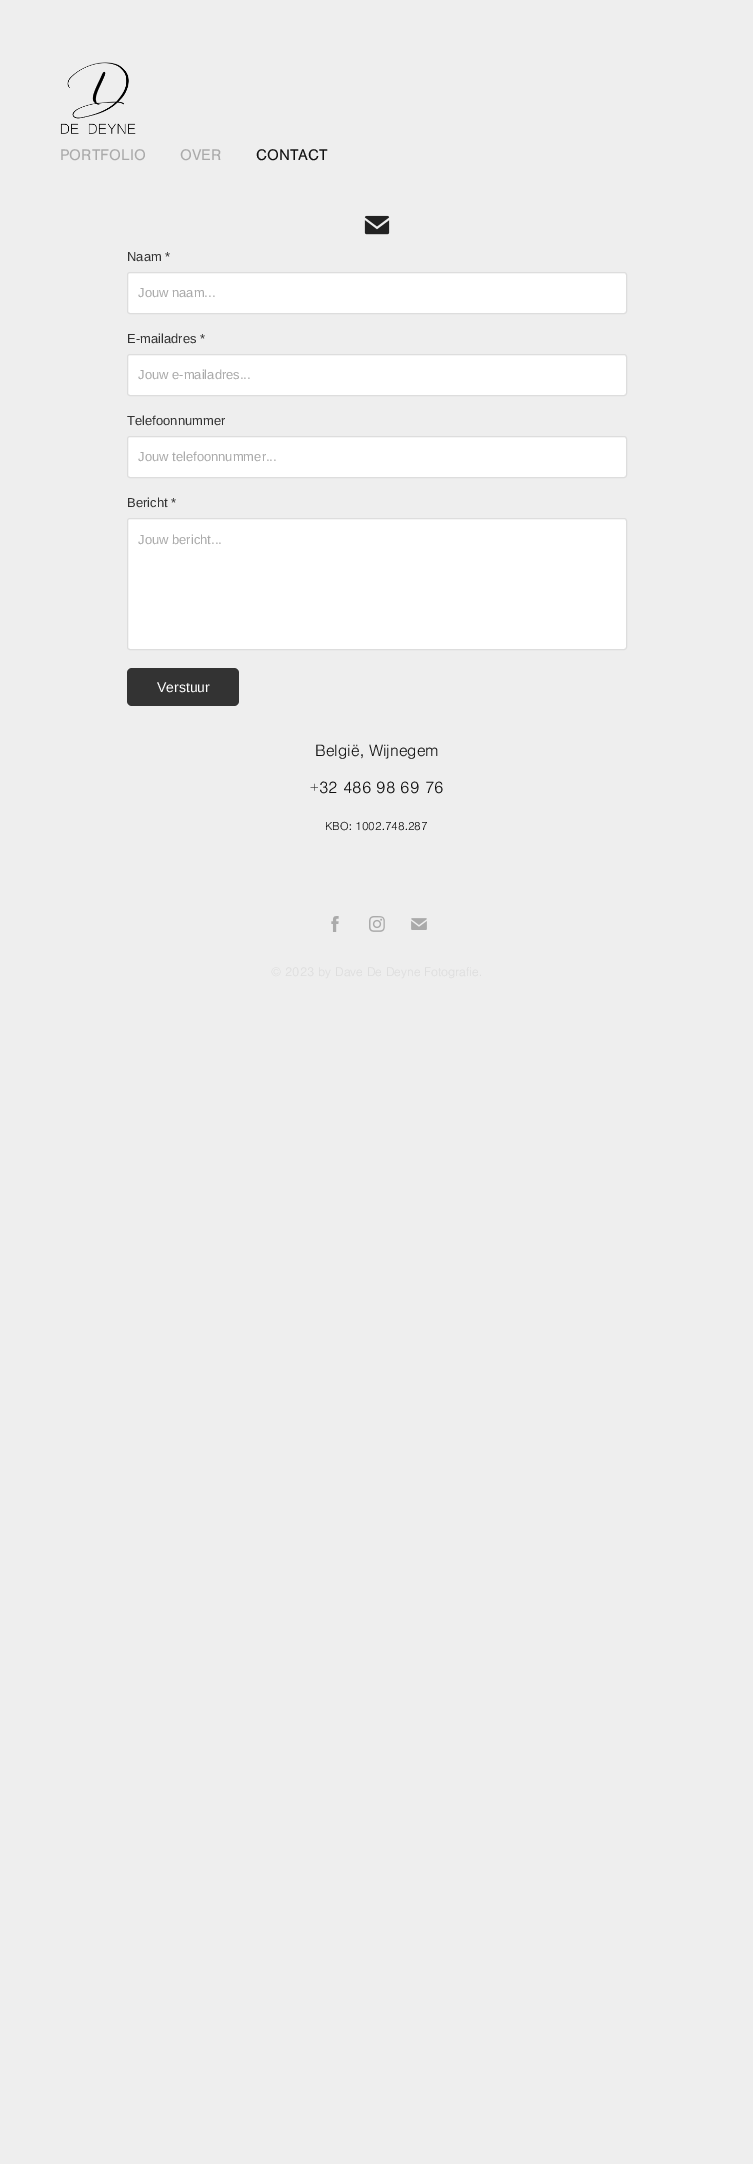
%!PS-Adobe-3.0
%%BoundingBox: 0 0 753 2164
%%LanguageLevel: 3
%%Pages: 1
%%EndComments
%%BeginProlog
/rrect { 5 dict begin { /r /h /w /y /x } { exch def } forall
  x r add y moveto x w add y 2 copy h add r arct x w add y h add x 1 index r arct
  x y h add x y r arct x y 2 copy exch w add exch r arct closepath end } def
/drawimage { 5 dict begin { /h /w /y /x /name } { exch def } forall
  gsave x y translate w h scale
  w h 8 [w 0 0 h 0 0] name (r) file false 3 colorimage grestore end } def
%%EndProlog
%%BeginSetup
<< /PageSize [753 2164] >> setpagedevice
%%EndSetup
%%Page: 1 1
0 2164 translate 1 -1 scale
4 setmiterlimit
0.933 setgray
0 0 753 2164 rectfill
(images/1.raw) 60 62 76 72 drawimage
(images/2.raw) 364 215 26 20 drawimage
1 setgray
127.5 272.5 499 41 2.5 rrect gsave fill grestore
0.867 setgray
stroke
1 setgray
127.5 354.5 499 41 2.5 rrect gsave fill grestore
0.867 setgray
stroke
1 setgray
127.5 436.5 499 41 2.5 rrect gsave fill grestore
0.867 setgray
stroke
1 setgray
127.5 518.5 499 131 2.5 rrect gsave fill grestore
0.867 setgray
stroke
0.2 setgray
127 668 112 38 5 rrect fill
(images/3.raw) 331 916 8 16 drawimage
(images/4.raw) 369 916 16 16 drawimage
(images/5.raw) 411 918 16 12 drawimage
/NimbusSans-Regular [16 0 0 -16 0 0] selectfont
0.667 setgray
60 160 moveto (PORTFOLIO) show
180 160 moveto (OVER) show
0.067 setgray
256 160 moveto (CONTACT) show
/LiberationSans-Regular [13 0 0 -13 0 0] selectfont
0.2 setgray
127 261 moveto (Naam *) show
0.667 setgray
138 297 moveto (Jouw naam...) show
0.2 setgray
127 343 moveto (E-mailadres *) show
0.667 setgray
138 379 moveto (Jouw e-mailadres...) show
0.2 setgray
127 425 moveto (Telefoonnummer) show
0.667 setgray
138 461 moveto (Jouw telefoonnummer...) show
0.2 setgray
127 507 moveto (Bericht *) show
0.667 setgray
138 544 moveto (Jouw bericht...) show
/LiberationSans-Regular [14 0 0 -14 0 0] selectfont
1 setgray
157 692 moveto (Verstuur) show
/NimbusSans-Light [17 0 0 -17 0 0] selectfont
0.067 setgray
315 756 moveto (België, Wijnegem) show
310 793 moveto (+32 486 98 69 76) show
/NimbusSans-Light [12 0 0 -12 0 0] selectfont
325 830 moveto (KBO: 1002.748.287) show
/NimbusSans-Light [13 0 0 -13 0 0] selectfont
0.867 setgray
271 976 moveto (© 2023 by Dave De Deyne Fotografie.) show
showpage
%%EOF
